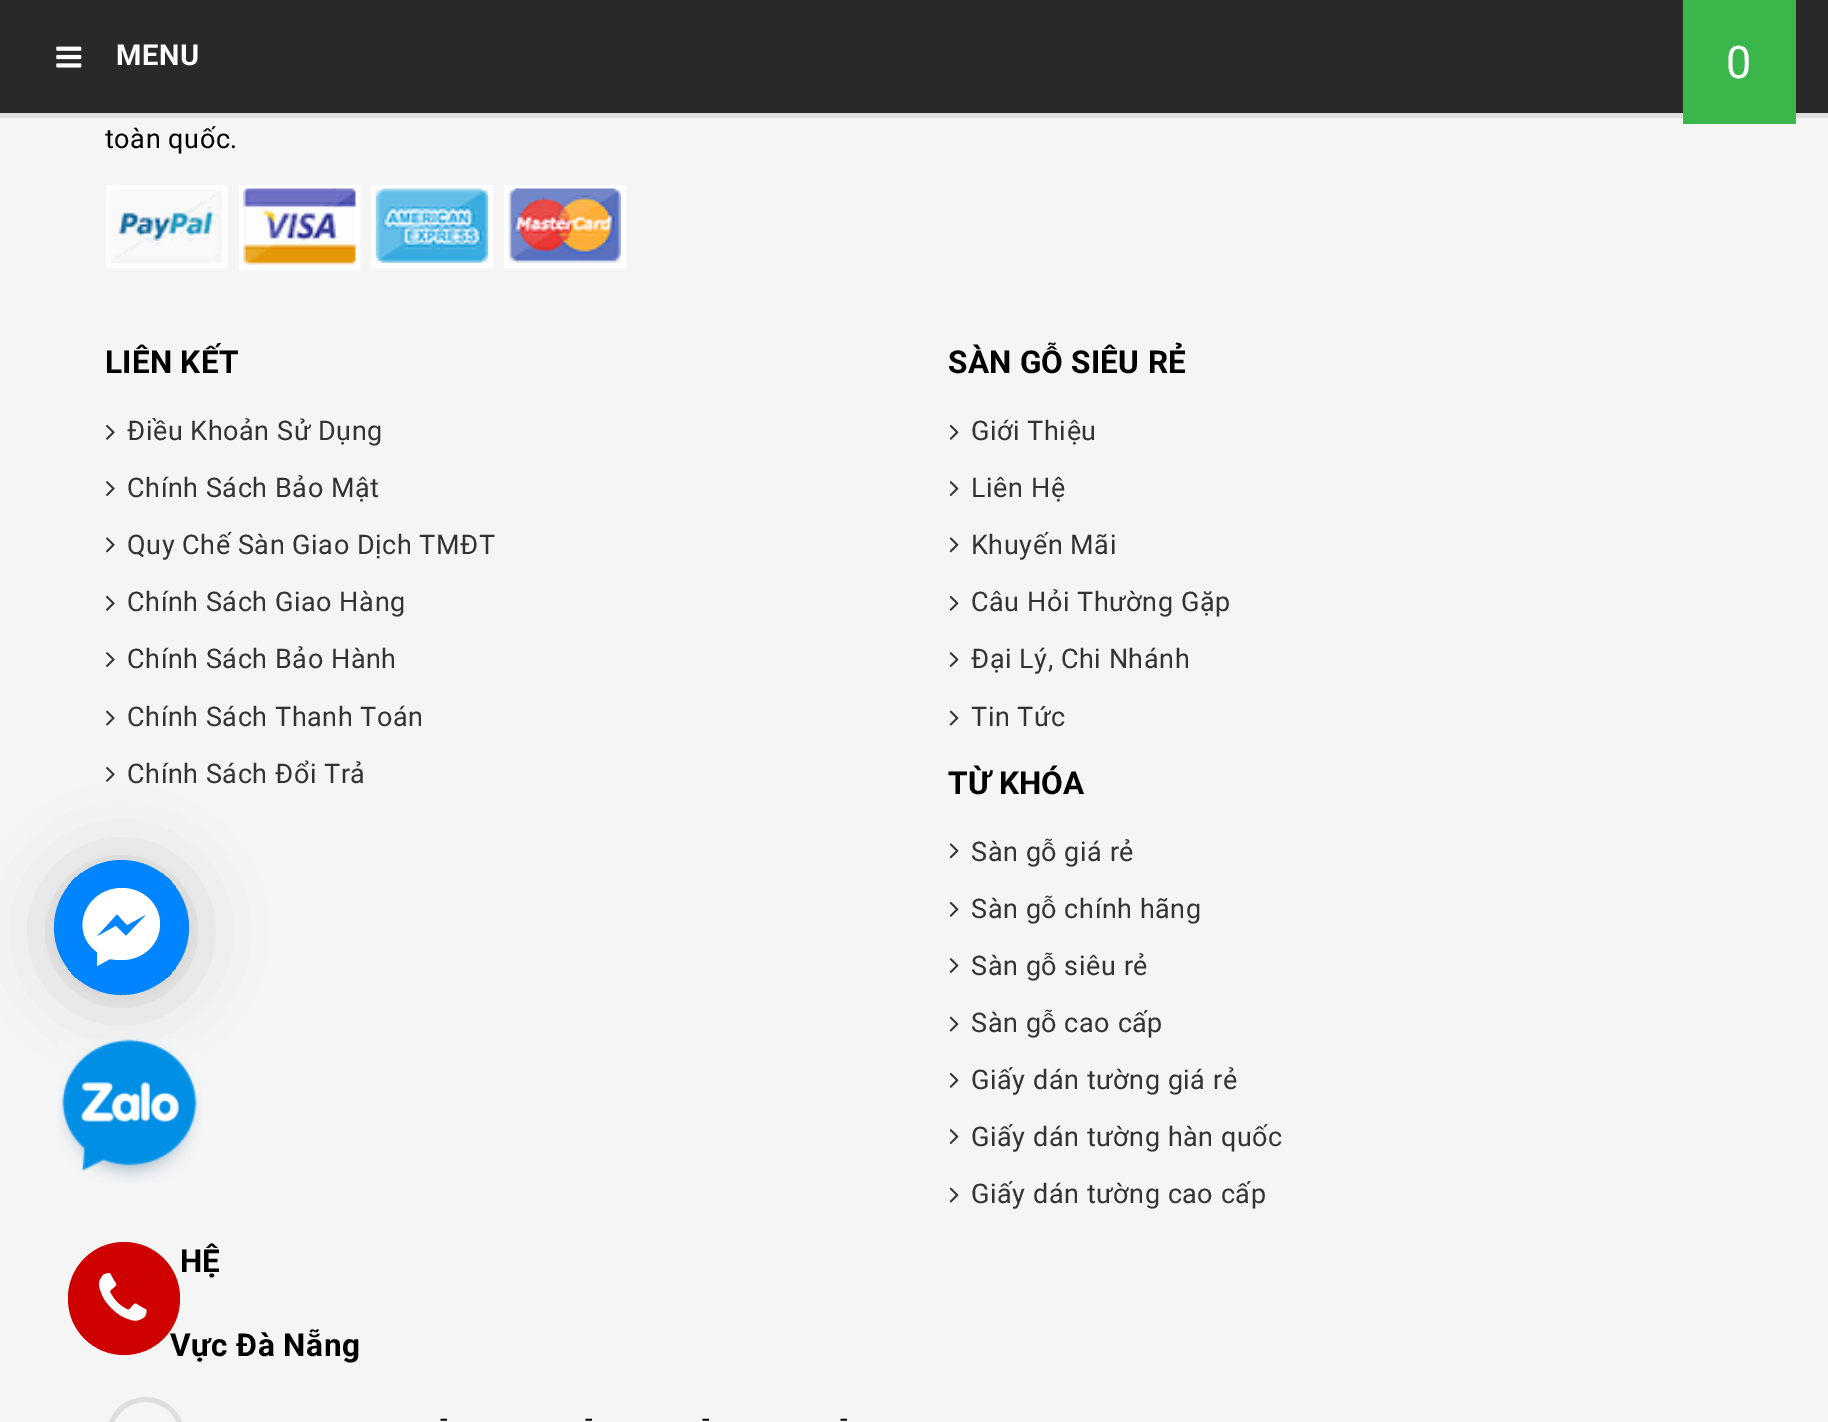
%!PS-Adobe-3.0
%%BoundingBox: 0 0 1828 1422
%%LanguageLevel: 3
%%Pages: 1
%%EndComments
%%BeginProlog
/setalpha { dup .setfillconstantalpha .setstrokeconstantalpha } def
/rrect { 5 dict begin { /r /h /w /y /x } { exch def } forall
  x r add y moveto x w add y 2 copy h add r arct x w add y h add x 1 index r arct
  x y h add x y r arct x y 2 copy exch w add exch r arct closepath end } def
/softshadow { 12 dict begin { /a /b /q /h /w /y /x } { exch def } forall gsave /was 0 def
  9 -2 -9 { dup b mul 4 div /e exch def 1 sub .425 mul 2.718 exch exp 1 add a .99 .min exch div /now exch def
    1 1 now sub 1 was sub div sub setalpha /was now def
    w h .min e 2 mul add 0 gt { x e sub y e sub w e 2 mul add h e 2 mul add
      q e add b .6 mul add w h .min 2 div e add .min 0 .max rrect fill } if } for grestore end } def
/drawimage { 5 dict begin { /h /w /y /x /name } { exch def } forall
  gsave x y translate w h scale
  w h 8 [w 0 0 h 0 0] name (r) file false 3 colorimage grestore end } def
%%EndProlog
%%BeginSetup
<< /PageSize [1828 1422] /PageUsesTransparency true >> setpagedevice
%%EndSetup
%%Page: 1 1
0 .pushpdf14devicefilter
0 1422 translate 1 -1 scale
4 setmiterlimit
0.961 setgray
0 0 1828 1422 rectfill
0.871 setgray
0 113 1828 5 rectfill
0.161 setgray
0 0 1828 113 rectfill
(images/1.raw) 56 46 26 22 drawimage
0.231 0.714 0.294 setrgbcolor
1683 0 113 124 rectfill
1 setgray
5 setlinewidth
108.5 187.5 116 78 rectstroke
(images/2.raw) 110 189 108 69 drawimage
241.5 187.5 116 80 rectstroke
(images/3.raw) 243 188 113 77 drawimage
373.5 187.5 117 78 rectstroke
(images/4.raw) 375 188 114 75 drawimage
506.5 187.5 117 78 rectstroke
(images/5.raw) 508 188 113 75 drawimage
(images/6.raw) 106 424 9 16 drawimage
(images/7.raw) 106 481 9 15 drawimage
(images/8.raw) 106 537 9 16 drawimage
(images/6.raw) 106 595 9 16 drawimage
(images/7.raw) 106 652 9 15 drawimage
(images/9.raw) 106 710 9 16 drawimage
(images/6.raw) 106 766 9 16 drawimage
(images/10.raw) 949 424 10 16 drawimage
(images/11.raw) 949 481 10 15 drawimage
(images/12.raw) 949 537 10 16 drawimage
(images/10.raw) 949 595 10 16 drawimage
(images/11.raw) 949 652 10 15 drawimage
(images/13.raw) 949 710 10 16 drawimage
(images/12.raw) 949 843 10 16 drawimage
(images/10.raw) 949 901 10 16 drawimage
(images/11.raw) 949 958 10 15 drawimage
(images/13.raw) 949 1016 10 16 drawimage
(images/10.raw) 949 1072 10 16 drawimage
(images/11.raw) 949 1129 10 15 drawimage
(images/13.raw) 949 1187 10 16 drawimage
0.871 setgray
108.5 1399.5 74 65 37 rrect stroke
0 setgray
54 864 135 135 67.5 36 0.16 softshadow
54 862 135 135 67.5 7 0.06 softshadow
0 0.518 1 setrgbcolor
newpath 121.5 927.5 67.5 0 360 arc closepath fill
gsave
54 860 135 135 67.5 rrect clip newpath
68 873 108 108 rectfill
grestore
1 setgray
newpath 122 888 moveto 86 888 68 931 97 952 curveto 97 966 lineto 110 959 lineto 114 960 118 960 122 960 curveto 143 960 160 944 160 924 curveto 160 904 143 888 122 888 curveto closepath 126 936 moveto 116 926 lineto 96 937 lineto 117 914 lineto 127 925 lineto 147 914 lineto closepath fill
(images/14.raw) 58 1039 143 144 drawimage
/Roboto-Bold [29 0 0 -29 0 0] selectfont
116 65 moveto 0.55 0 (MENU) ashow
/Roboto-Regular [45 0 0 -45 0 0] selectfont
1726 78 moveto 0.55 0 (0) ashow
/Roboto-Regular [27 0 0 -27 0 0] selectfont
0 setgray
105 148 moveto 0.55 0 (toàn quốc.) ashow
/Roboto-Bold [31.5 0 0 -31.5 0 0] selectfont
105 373 moveto 0.25 0 (LIÊN KẾT) ashow
/Roboto-Regular [27 0 0 -27 0 0] selectfont
0.2 setgray
127 440 moveto 0.55 0 (Điều Khoản Sử Dụng) ashow
127 497 moveto 0.55 0 (Chính Sách Bảo Mật) ashow
127 554 moveto 0.55 0 (Quy Chế Sàn Giao Dịch TMĐT) ashow
127 611 moveto 0.55 0 (Chính Sách Giao Hàng) ashow
127 668 moveto 0.55 0 (Chính Sách Bảo Hành) ashow
127 726 moveto 0.55 0 (Chính Sách Thanh Toán) ashow
127 783 moveto 0.55 0 (Chính Sách Đổi Trả) ashow
/Roboto-Bold [31.5 0 0 -31.5 0 0] selectfont
0 setgray
948 373 moveto 0.25 0 (SÀN GỖ SIÊU RẺ) ashow
/Roboto-Regular [27 0 0 -27 0 0] selectfont
0.2 setgray
971 440 moveto 0.55 0 (Giới Thiệu) ashow
971 497 moveto 0.55 0 (Liên Hệ) ashow
971 554 moveto 0.55 0 (Khuyến Mãi) ashow
971 611 moveto 0.55 0 (Câu Hỏi Thường Gặp) ashow
971 668 moveto 0.55 0 (Đại Lý, Chi Nhánh) ashow
971 726 moveto 0.55 0 (Tin Tức) ashow
/Roboto-Bold [31.5 0 0 -31.5 0 0] selectfont
0 setgray
948 794 moveto 0.25 0 (TỪ KHÓA) ashow
/Roboto-Regular [27 0 0 -27 0 0] selectfont
0.2 setgray
971 861 moveto 0.55 0 (Sàn gỗ giá rẻ) ashow
971 918 moveto 0.55 0 (Sàn gỗ chính hãng) ashow
971 975 moveto 0.55 0 (Sàn gỗ siêu rẻ) ashow
971 1032 moveto 0.55 0 (Sàn gỗ cao cấp) ashow
971 1089 moveto 0.55 0 (Giấy dán tường giá rẻ) ashow
971 1146 moveto 0.55 0 (Giấy dán tường hàn quốc) ashow
971 1203 moveto 0.55 0 (Giấy dán tường cao cấp) ashow
/Roboto-Bold [31.5 0 0 -31.5 0 0] selectfont
0 setgray
180 1272 moveto 0.25 0 (HỆ) ashow
170 1356 moveto 0.55 0 (Vực Đà Nẵng) ashow
/Roboto-Regular [27 0 0 -27 0 0] selectfont
440 1428 moveto 0.55 0 (-) ashow
585 1428 moveto 0.55 0 (-) ashow
702 1428 moveto 0.55 0 (-) ashow
840 1428 moveto 0.55 0 (-) ashow
0.808 0 0 setrgbcolor
68 1242 112 113 56 rrect fill
(images/15.raw) 99 1273 48 48 drawimage
.poppdf14devicefilter showpage
%%EOF
